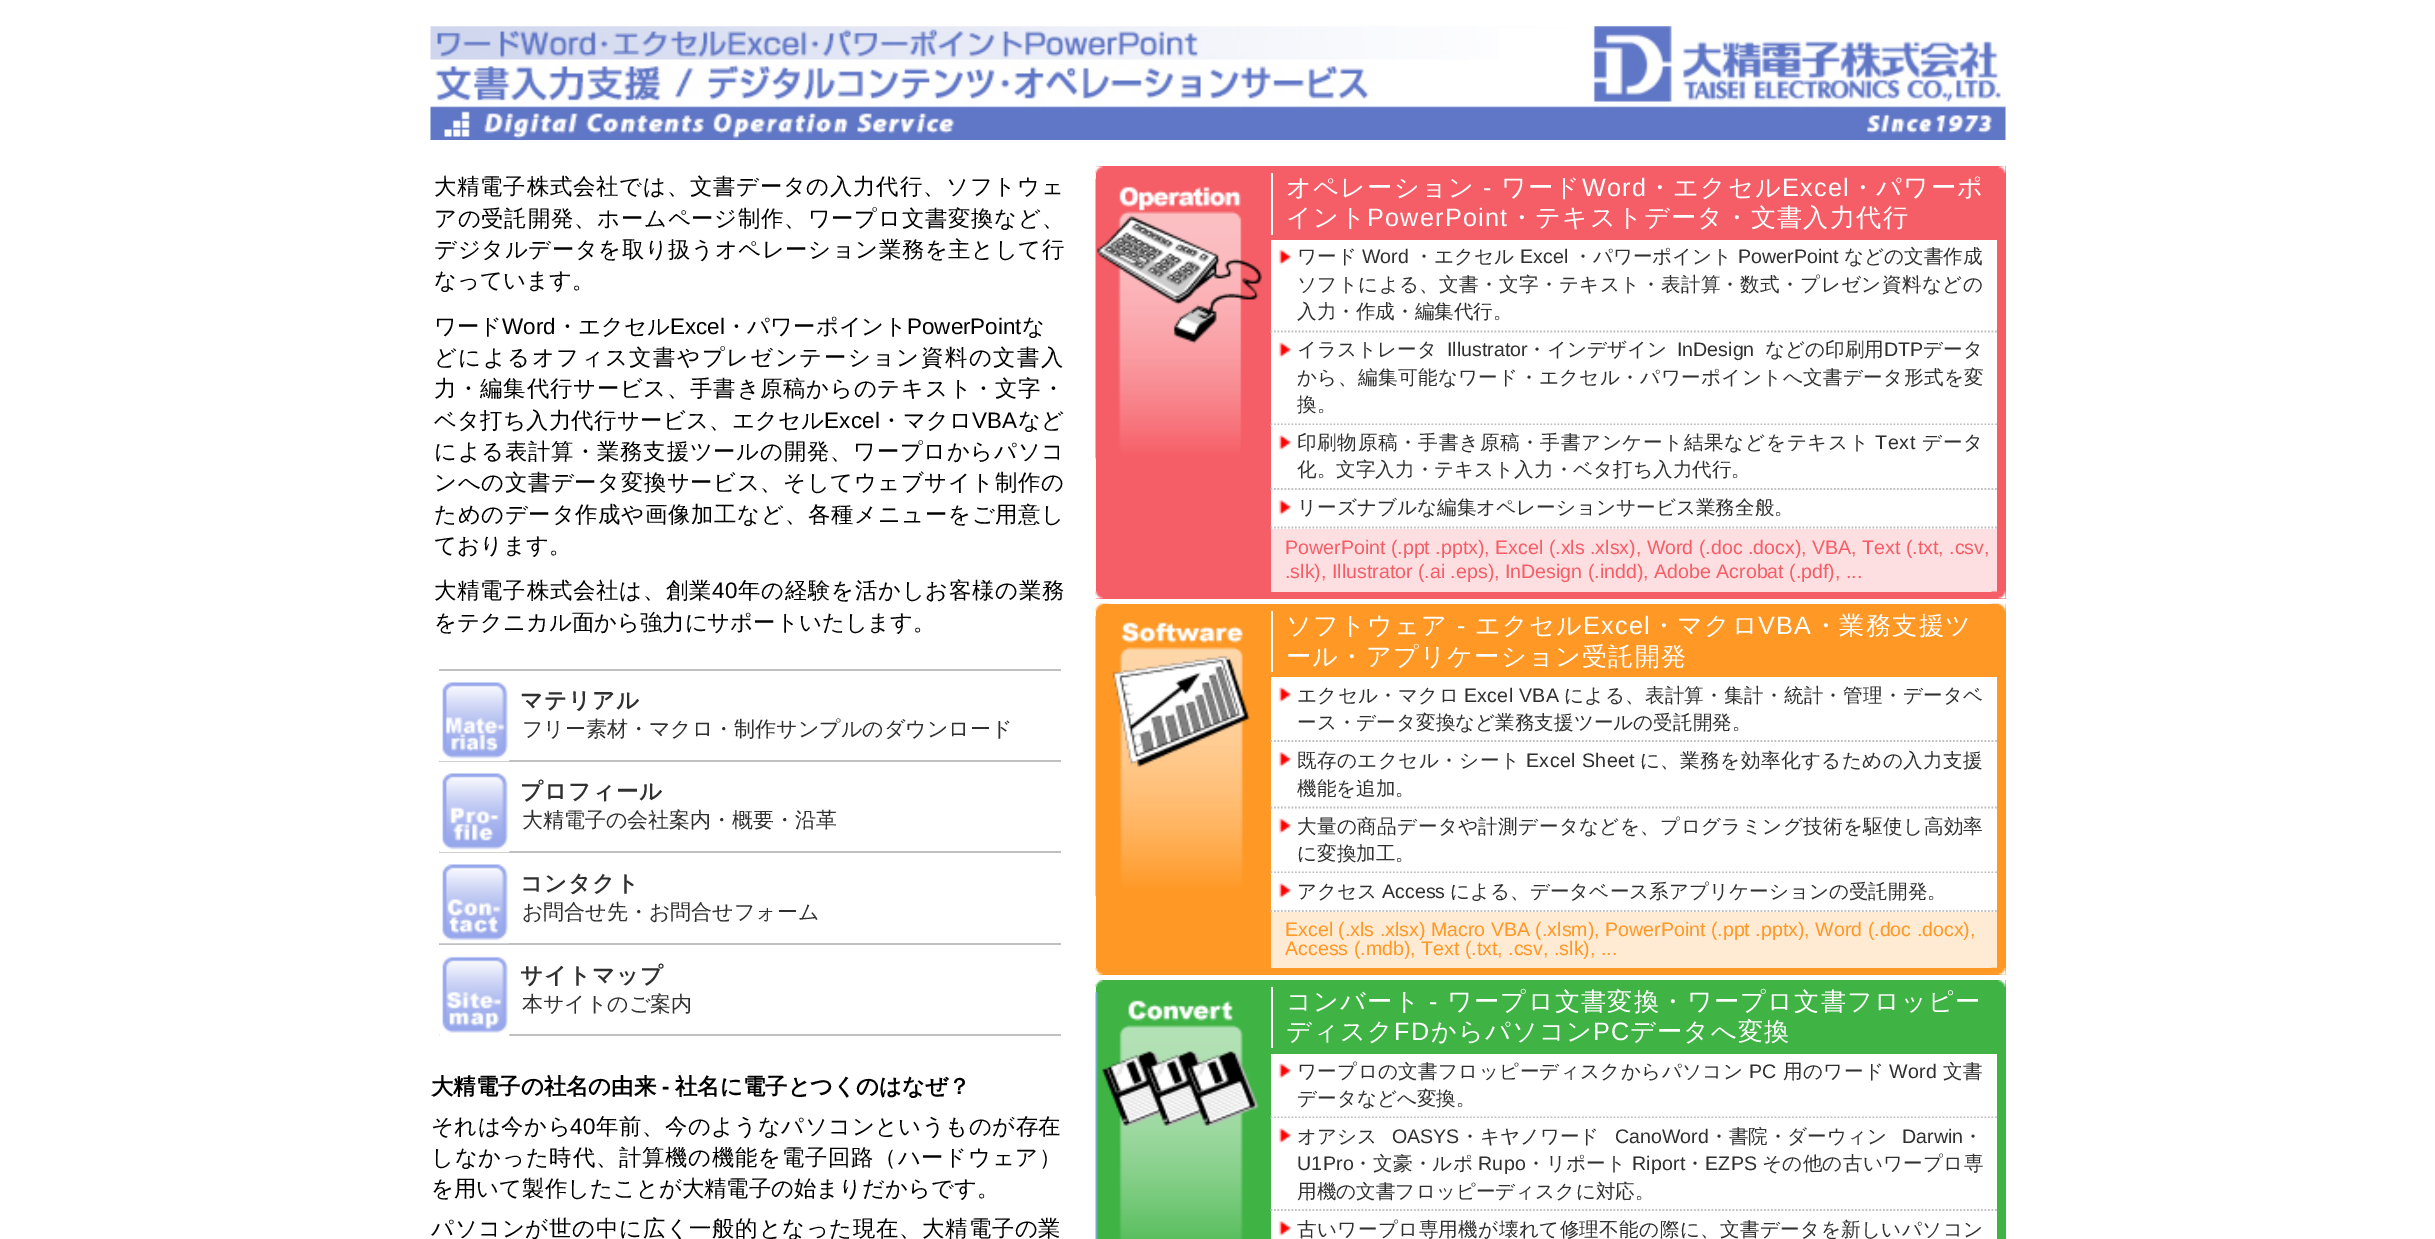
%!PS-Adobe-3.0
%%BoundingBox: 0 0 2435 1239
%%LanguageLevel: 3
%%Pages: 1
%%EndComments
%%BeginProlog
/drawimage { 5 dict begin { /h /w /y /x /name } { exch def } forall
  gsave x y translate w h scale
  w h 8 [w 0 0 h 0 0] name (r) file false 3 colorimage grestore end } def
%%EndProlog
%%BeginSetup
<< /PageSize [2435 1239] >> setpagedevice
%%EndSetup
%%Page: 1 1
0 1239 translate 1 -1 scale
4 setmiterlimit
1 setgray
0 0 2435 1239 rectfill
(images/1.raw) 430 26 1576 114 drawimage
0.965 0.369 0.404 setrgbcolor
1096 166 910 7 rectfill
(images/2.raw) 1095 166 15 8 drawimage
(images/3.raw) 1991 166 15 7 drawimage
1096 173 910 419 rectfill
(images/4.raw) 1095 178 167 281 drawimage
1 setgray
1271 173 2 62 rectfill
1271 240 726 185 rectfill
(images/5.raw) 1278 249 14 16 drawimage
0.753 setgray
1.8 setlinewidth
[1.75 1.75] 0 setdash
newpath 1270.5 331.5 moveto 1997 331.5 lineto stroke
(images/6.raw) 1278 342 14 16 drawimage
newpath 1270.5 424.5 moveto 1997 424.5 lineto stroke
1 setgray
1271 425 726 104 rectfill
(images/7.raw) 1278 435 14 16 drawimage
0.753 setgray
newpath 1270.5 489 moveto 1997 489 lineto stroke
(images/8.raw) 1278 500 14 15 drawimage
newpath 1270.5 527.5 moveto 1997 527.5 lineto stroke
0.992 0.875 0.882 setrgbcolor
1271 529 726 63 rectfill
0.965 0.369 0.404 setrgbcolor
1096 592 910 7 rectfill
(images/9.raw) 1095 591 8 8 drawimage
(images/10.raw) 1991 591 15 8 drawimage
1 0.596 0.141 setrgbcolor
1096 604 910 364 rectfill
(images/11.raw) 1095 603 15 8 drawimage
(images/12.raw) 1991 603 15 8 drawimage
(images/13.raw) 1095 616 155 280 drawimage
1 setgray
1271 611 2 61 rectfill
1271 677 726 196 rectfill
(images/7.raw) 1278 687 14 16 drawimage
0.753 setgray
newpath 1270.5 741 moveto 1997 741 lineto stroke
(images/8.raw) 1278 752 14 15 drawimage
newpath 1270.5 807.5 moveto 1997 807.5 lineto stroke
(images/6.raw) 1278 818 14 16 drawimage
newpath 1270.5 872.5 moveto 1997 872.5 lineto stroke
1 setgray
1271 873 726 39 rectfill
(images/7.raw) 1278 883 14 16 drawimage
0.753 setgray
newpath 1270.5 911 moveto 1997 911 lineto stroke
1 0.918 0.827 setrgbcolor
1271 912 726 56 rectfill
1 0.596 0.141 setrgbcolor
1096 968 910 7 rectfill
(images/14.raw) 1095 967 8 8 drawimage
(images/15.raw) 1991 967 15 8 drawimage
0.247 0.706 0.271 setrgbcolor
1096 980 910 259 rectfill
(images/16.raw) 1095 980 8 7 drawimage
(images/17.raw) 1998 980 8 7 drawimage
(images/18.raw) 1095 992 164 247 drawimage
1 setgray
1271 987 2 61 rectfill
1271 1054 726 64 rectfill
(images/6.raw) 1278 1063 14 16 drawimage
0.753 setgray
newpath 1270.5 1117.5 moveto 1997 1117.5 lineto stroke
1 setgray
1271 1118 726 121 rectfill
(images/7.raw) 1278 1128 14 16 drawimage
0.753 setgray
newpath 1270.5 1210 moveto 1997 1210 lineto stroke
(images/8.raw) 1278 1221 14 15 drawimage
439 669 622 2 rectfill
439 760 622 2 rectfill
(images/19.raw) 439 682 71 80 drawimage
439 851 622 2 rectfill
(images/20.raw) 439 773 71 80 drawimage
439 943 622 2 rectfill
(images/21.raw) 439 864 70 80 drawimage
439 1034 622 2 rectfill
(images/22.raw) 439 956 71 80 drawimage
/WenQuanYiZenHei-Medium [22.4 0 0 -22.4 0 0] selectfont
0 setgray
434 194 moveto 0.75 0 (大精電子株式会社では、文書データの入力代行、ソフトウェ) ashow
434 226 moveto 0.75 0 (アの受託開発、ホームページ制作、ワープロ文書変換など、) ashow
434 257 moveto 0.6 0 (デジタルデータを取り扱うオペレーション業務を主として行) ashow
434 288 moveto (なっています。) show
434 334 moveto (ワード) show
/LiberationSans-Regular [22.4 0 0 -22.4 0 0] selectfont
502 334 moveto (Word) show
/WenQuanYiZenHei-Medium [22.4 0 0 -22.4 0 0] selectfont
556 334 moveto (・エクセル) show
/LiberationSans-Regular [22.4 0 0 -22.4 0 0] selectfont
670 334 moveto (Excel) show
/WenQuanYiZenHei-Medium [22.4 0 0 -22.4 0 0] selectfont
725 334 moveto (・パワーポイント) show
/LiberationSans-Regular [22.4 0 0 -22.4 0 0] selectfont
907 334 moveto (PowerPoint) show
/WenQuanYiZenHei-Medium [22.4 0 0 -22.4 0 0] selectfont
1022 334 moveto (な) show
434 365 moveto 1.5 0 (どによるオフィス文書やプレゼンテーション資料の文書入) ashow
434 396 moveto 0.75 0 (力・編集代行サービス、手書き原稿からのテキスト・文字・) ashow
434 428 moveto 0.25 0 (ベタ打ち入力代行サービス、エクセル) ashow
/LiberationSans-Regular [22.4 0 0 -22.4 0 0] selectfont
824 428 moveto 0.25 0 (Excel) ashow
/WenQuanYiZenHei-Medium [22.4 0 0 -22.4 0 0] selectfont
880 428 moveto 0.25 0 (・マクロ) ashow
/LiberationSans-Regular [22.4 0 0 -22.4 0 0] selectfont
972 428 moveto 0.25 0 (VBA) ashow
/WenQuanYiZenHei-Medium [22.4 0 0 -22.4 0 0] selectfont
1018 428 moveto 0.25 0 (など) ashow
434 459 moveto 0.7 0 (による表計算・業務支援ツールの開発、ワープロからパソコ) ashow
434 490 moveto 0.6 0 (ンへの文書データ変換サービス、そしてウェブサイト制作の) ashow
434 522 moveto 0.7 0 (ためのデータ作成や画像加工など、各種メニューをご用意し) ashow
434 553 moveto (ております。) show
434 598 moveto 0.75 0 (大精電子株式会社は、創業) ashow
/LiberationSans-Regular [22.4 0 0 -22.4 0 0] selectfont
712 598 moveto 0.75 0 (40) ashow
/WenQuanYiZenHei-Medium [22.4 0 0 -22.4 0 0] selectfont
738 598 moveto 0.75 0 (年の経験を活かしお客様の業務) ashow
434 630 moveto (をテクニカル面から強力にサポートいたします。) show
/WenQuanYiZenHei-Medium [25.2 0 0 -25.2 0 0] selectfont
1 setgray
1286 196 moveto 1.25 0 (オペレーション) ashow
/LiberationSans-Regular [25.2 0 0 -25.2 0 0] selectfont
1483 196 moveto 1.25 0 (-) ashow
/WenQuanYiZenHei-Medium [25.2 0 0 -25.2 0 0] selectfont
1501 196 moveto 1.25 0 (ワード) ashow
/LiberationSans-Regular [25.2 0 0 -25.2 0 0] selectfont
1582 196 moveto 1.25 0 (Word) ashow
/WenQuanYiZenHei-Medium [25.2 0 0 -25.2 0 0] selectfont
1647 196 moveto 1.25 0 (・エクセル) ashow
/LiberationSans-Regular [25.2 0 0 -25.2 0 0] selectfont
1782 196 moveto 1.25 0 (Excel) ashow
/WenQuanYiZenHei-Medium [25.2 0 0 -25.2 0 0] selectfont
1850 196 moveto 1.25 0 (・パワーポ) ashow
1286 226 moveto 1.25 0 (イント) ashow
/LiberationSans-Regular [25.2 0 0 -25.2 0 0] selectfont
1367 226 moveto 1.25 0 (PowerPoint) ashow
/WenQuanYiZenHei-Medium [25.2 0 0 -25.2 0 0] selectfont
1509 226 moveto 1.25 0 (・テキストデータ・文書入力代行) ashow
/WenQuanYiZenHei-Medium [19.6 0 0 -19.6 0 0] selectfont
0.188 setgray
1297 263 moveto (ワード) show
/LiberationSans-Regular [19.6 0 0 -19.6 0 0] selectfont
1362 263 moveto (Word) show
/WenQuanYiZenHei-Medium [19.6 0 0 -19.6 0 0] selectfont
1414 263 moveto (・エクセル) show
/LiberationSans-Regular [19.6 0 0 -19.6 0 0] selectfont
1520 263 moveto (Excel) show
/WenQuanYiZenHei-Medium [19.6 0 0 -19.6 0 0] selectfont
1573 263 moveto (・パワーポイント) show
/LiberationSans-Regular [19.6 0 0 -19.6 0 0] selectfont
1738 263 moveto (PowerPoint) show
/WenQuanYiZenHei-Medium [19.6 0 0 -19.6 0 0] selectfont
1844 263 moveto (などの文書作成) show
1297 291 moveto 0.35 0 (ソフトによる、文書・文字・テキスト・表計算・数式・プレゼン資料などの) ashow
1297 318 moveto (入力・作成・編集代行。) show
1297 356 moveto (イラストレータ) show
/LiberationSans-Regular [19.6 0 0 -19.6 0 0] selectfont
1447 356 moveto (Illustrator) show
/WenQuanYiZenHei-Medium [19.6 0 0 -19.6 0 0] selectfont
1527 356 moveto (・インデザイン) show
/LiberationSans-Regular [19.6 0 0 -19.6 0 0] selectfont
1677 356 moveto (InDesign) show
/WenQuanYiZenHei-Medium [19.6 0 0 -19.6 0 0] selectfont
1765 356 moveto (などの印刷用) show
/LiberationSans-Regular [19.6 0 0 -19.6 0 0] selectfont
1884 356 moveto (DTP) show
/WenQuanYiZenHei-Medium [19.6 0 0 -19.6 0 0] selectfont
1923 356 moveto (データ) show
1297 384 moveto 0.35 0 (から、編集可能なワード・エクセル・パワーポイントへ文書データ形式を変) ashow
1297 411 moveto (換。) show
1297 449 moveto 0.65 0 (印刷物原稿・手書き原稿・手書アンケート結果などをテキスト) ashow
/LiberationSans-Regular [19.6 0 0 -19.6 0 0] selectfont
1875 449 moveto 0.65 0 (Text) ashow
/WenQuanYiZenHei-Medium [19.6 0 0 -19.6 0 0] selectfont
1922 449 moveto 0.65 0 (データ) ashow
1297 476 moveto (化。文字入力・テキスト入力・ベタ打ち入力代行。) show
1297 514 moveto (リーズナブルな編集オペレーションサービス業務全般。) show
/LiberationSans-Regular [19.6 0 0 -19.6 0 0] selectfont
0.965 0.369 0.404 setrgbcolor
1285 554 moveto (PowerPoint \(.ppt .pptx\), Excel \(.xls .xlsx\), Word \(.doc .docx\), VBA, Text \(.txt, .csv,) show
1285 578 moveto (.slk\), Illustrator \(.ai .eps\), InDesign \(.indd\), Adobe Acrobat \(.pdf\), ...) show
/WenQuanYiZenHei-Medium [25.2 0 0 -25.2 0 0] selectfont
1 setgray
1286 634 moveto 1.25 0 (ソフトウェア) ashow
/LiberationSans-Regular [25.2 0 0 -25.2 0 0] selectfont
1457 634 moveto 1.25 0 (-) ashow
/WenQuanYiZenHei-Medium [25.2 0 0 -25.2 0 0] selectfont
1475 634 moveto 1.25 0 (エクセル) ashow
/LiberationSans-Regular [25.2 0 0 -25.2 0 0] selectfont
1583 634 moveto 1.25 0 (Excel) ashow
/WenQuanYiZenHei-Medium [25.2 0 0 -25.2 0 0] selectfont
1651 634 moveto 1.25 0 (・マクロ) ashow
/LiberationSans-Regular [25.2 0 0 -25.2 0 0] selectfont
1758 634 moveto 1.25 0 (VBA) ashow
/WenQuanYiZenHei-Medium [25.2 0 0 -25.2 0 0] selectfont
1813 634 moveto 1.25 0 (・業務支援ツ) ashow
1286 665 moveto 1.25 0 (ール・アプリケーション受託開発) ashow
/WenQuanYiZenHei-Medium [19.6 0 0 -19.6 0 0] selectfont
0.188 setgray
1297 702 moveto 0.25 0 (エクセル・マクロ) ashow
/LiberationSans-Regular [19.6 0 0 -19.6 0 0] selectfont
1464 702 moveto 0.25 0 (Excel VBA) ashow
/WenQuanYiZenHei-Medium [19.6 0 0 -19.6 0 0] selectfont
1564 702 moveto 0.25 0 (による、表計算・集計・統計・管理・データベ) ashow
1297 729 moveto (ース・データ変換など業務支援ツールの受託開発。) show
1297 767 moveto 0.4 0 (既存のエクセル・シート) ashow
/LiberationSans-Regular [19.6 0 0 -19.6 0 0] selectfont
1526 767 moveto 0.4 0 (Excel Sheet) ashow
/WenQuanYiZenHei-Medium [19.6 0 0 -19.6 0 0] selectfont
1640 767 moveto 0.4 0 (に、業務を効率化するための入力支援) ashow
1297 795 moveto (機能を追加。) show
1297 833 moveto 0.35 0 (大量の商品データや計測データなどを、プログラミング技術を駆使し高効率) ashow
1297 860 moveto (に変換加工。) show
1297 898 moveto (アクセス) show
/LiberationSans-Regular [19.6 0 0 -19.6 0 0] selectfont
1382 898 moveto (Access) show
/WenQuanYiZenHei-Medium [19.6 0 0 -19.6 0 0] selectfont
1450 898 moveto (による、データベース系アプリケーションの受託開発。) show
/LiberationSans-Regular [19.6 0 0 -19.6 0 0] selectfont
1 0.596 0.141 setrgbcolor
1285 936 moveto (Excel \(.xls .xlsx\) Macro VBA \(.xlsm\), PowerPoint \(.ppt .pptx\), Word \(.doc .docx\),) show
1285 955 moveto (Access \(.mdb\), Text \(.txt, .csv, .slk\), ...) show
/WenQuanYiZenHei-Medium [25.2 0 0 -25.2 0 0] selectfont
1 setgray
1286 1010 moveto 1.25 0 (コンバート) ashow
/LiberationSans-Regular [25.2 0 0 -25.2 0 0] selectfont
1429 1010 moveto 1.25 0 (-) ashow
/WenQuanYiZenHei-Medium [25.2 0 0 -25.2 0 0] selectfont
1447 1010 moveto 1.25 0 (ワープロ文書変換・ワープロ文書フロッピー) ashow
1286 1040 moveto 1.25 0 (ディスク) ashow
/LiberationSans-Regular [25.2 0 0 -25.2 0 0] selectfont
1394 1040 moveto 1.25 0 (FD) ashow
/WenQuanYiZenHei-Medium [25.2 0 0 -25.2 0 0] selectfont
1431 1040 moveto 1.25 0 (からパソコン) ashow
/LiberationSans-Regular [25.2 0 0 -25.2 0 0] selectfont
1593 1040 moveto 1.25 0 (PC) ashow
/WenQuanYiZenHei-Medium [25.2 0 0 -25.2 0 0] selectfont
1630 1040 moveto 1.25 0 (データへ変換) ashow
/WenQuanYiZenHei-Medium [19.6 0 0 -19.6 0 0] selectfont
0.188 setgray
1297 1078 moveto 0.3 0 (ワープロの文書フロッピーディスクからパソコン) ashow
/LiberationSans-Regular [19.6 0 0 -19.6 0 0] selectfont
1749 1078 moveto 0.3 0 (PC) ashow
/WenQuanYiZenHei-Medium [19.6 0 0 -19.6 0 0] selectfont
1783 1078 moveto 0.3 0 (用のワード) ashow
/LiberationSans-Regular [19.6 0 0 -19.6 0 0] selectfont
1889 1078 moveto 0.3 0 (Word) ashow
/WenQuanYiZenHei-Medium [19.6 0 0 -19.6 0 0] selectfont
1943 1078 moveto 0.3 0 (文書) ashow
1297 1105 moveto (データなどへ変換。) show
1297 1143 moveto (オアシス) show
/LiberationSans-Regular [19.6 0 0 -19.6 0 0] selectfont
1392 1143 moveto (OASYS) show
/WenQuanYiZenHei-Medium [19.6 0 0 -19.6 0 0] selectfont
1460 1143 moveto (・キヤノワード) show
/LiberationSans-Regular [19.6 0 0 -19.6 0 0] selectfont
1615 1143 moveto (CanoWord) show
/WenQuanYiZenHei-Medium [19.6 0 0 -19.6 0 0] selectfont
1709 1143 moveto (・書院・ダーウィン) show
/LiberationSans-Regular [19.6 0 0 -19.6 0 0] selectfont
1902 1143 moveto (Darwin) show
/WenQuanYiZenHei-Medium [19.6 0 0 -19.6 0 0] selectfont
1963 1143 moveto (・) show
/LiberationSans-Regular [19.6 0 0 -19.6 0 0] selectfont
1297 1170 moveto 0.25 0 (U1Pro) ashow
/WenQuanYiZenHei-Medium [19.6 0 0 -19.6 0 0] selectfont
1353 1170 moveto 0.25 0 (・文豪・ルポ) ashow
/LiberationSans-Regular [19.6 0 0 -19.6 0 0] selectfont
1478 1170 moveto 0.25 0 (Rupo) ashow
/WenQuanYiZenHei-Medium [19.6 0 0 -19.6 0 0] selectfont
1526 1170 moveto 0.25 0 (・リポート) ashow
/LiberationSans-Regular [19.6 0 0 -19.6 0 0] selectfont
1632 1170 moveto 0.25 0 (Riport) ashow
/WenQuanYiZenHei-Medium [19.6 0 0 -19.6 0 0] selectfont
1685 1170 moveto 0.25 0 (・) ashow
/LiberationSans-Regular [19.6 0 0 -19.6 0 0] selectfont
1705 1170 moveto 0.25 0 (EZPS) ashow
/WenQuanYiZenHei-Medium [19.6 0 0 -19.6 0 0] selectfont
1762 1170 moveto 0.25 0 (その他の古いワープロ専) ashow
1297 1198 moveto (用機の文書フロッピーディスクに対応。) show
1297 1236 moveto 0.35 0 (古いワープロ専用機が壊れて修理不能の際に、文書データを新しいパソコン) ashow
/WenQuanYiZenHei-Bold [22.4 0 0 -22.4 0 0] selectfont
520 708 moveto 1 0 (マテリアル) ashow
/WenQuanYiZenHei-Medium [21 0 0 -21 0 0] selectfont
522 736 moveto (フリー素材・マクロ・制作サンプルのダウンロード) show
/WenQuanYiZenHei-Bold [22.4 0 0 -22.4 0 0] selectfont
520 799 moveto 1 0 (プロフィール) ashow
/WenQuanYiZenHei-Medium [21 0 0 -21 0 0] selectfont
522 827 moveto (大精電子の会社案内・概要・沿革) show
/WenQuanYiZenHei-Bold [22.4 0 0 -22.4 0 0] selectfont
520 891 moveto 1 0 (コンタクト) ashow
/WenQuanYiZenHei-Medium [21 0 0 -21 0 0] selectfont
522 919 moveto (お問合せ先・お問合せフォーム) show
/WenQuanYiZenHei-Bold [22.4 0 0 -22.4 0 0] selectfont
520 983 moveto 1 0 (サイトマップ) ashow
/WenQuanYiZenHei-Medium [21 0 0 -21 0 0] selectfont
522 1011 moveto (本サイトのご案内) show
/WenQuanYiZenHei-Bold [22.4 0 0 -22.4 0 0] selectfont
0 setgray
431 1094 moveto (大精電子の社名の由来) show
/LiberationSans-Bold [22.4 0 0 -22.4 0 0] selectfont
662 1094 moveto (-) show
/WenQuanYiZenHei-Bold [22.4 0 0 -22.4 0 0] selectfont
675 1094 moveto (社名に電子とつくのはなぜ？) show
/WenQuanYiZenHei-Medium [22.4 0 0 -22.4 0 0] selectfont
431 1134 moveto 0.5 0 (それは今から) ashow
/LiberationSans-Regular [22.4 0 0 -22.4 0 0] selectfont
570 1134 moveto 0.5 0 (40) ashow
/WenQuanYiZenHei-Medium [22.4 0 0 -22.4 0 0] selectfont
596 1134 moveto 0.5 0 (年前、今のようなパソコンというものが存在) ashow
431 1165 moveto 0.75 0 (しなかった時代、計算機の機能を電子回路（ハードウェア）) ashow
431 1196 moveto (を用いて製作したことが大精電子の始まりだからです。) show
431 1236 moveto 0.7 0 (パソコンが世の中に広く一般的となった現在、大精電子の業) ashow
showpage
%%EOF
